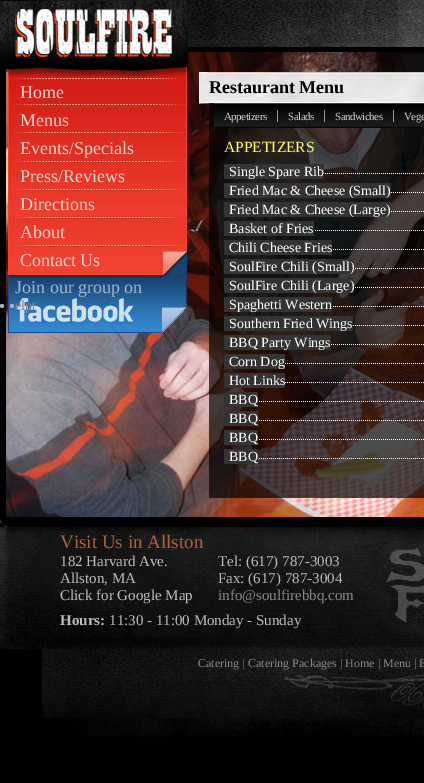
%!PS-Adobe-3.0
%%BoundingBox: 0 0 424 783
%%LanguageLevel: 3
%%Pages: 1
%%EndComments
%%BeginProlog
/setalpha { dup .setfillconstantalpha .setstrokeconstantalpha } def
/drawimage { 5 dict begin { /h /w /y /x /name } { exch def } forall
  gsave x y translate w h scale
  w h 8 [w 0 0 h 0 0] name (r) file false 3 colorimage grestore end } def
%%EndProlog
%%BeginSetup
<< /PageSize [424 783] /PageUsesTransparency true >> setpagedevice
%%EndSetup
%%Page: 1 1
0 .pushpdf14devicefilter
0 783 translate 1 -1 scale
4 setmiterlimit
0 setgray
0 0 424 783 rectfill
(images/1.raw) 0 0 424 737 drawimage
(images/2.raw) 0 47 424 480 drawimage
(images/3.raw) 6 52 418 465 drawimage
(images/4.raw) 0 1 188 71 drawimage
(images/5.raw) 8 72 179 203 drawimage
(images/6.raw) 8 275 179 58 drawimage
0.635 0.714 0.796 setrgbcolor
newpath 12 306 2 0 360 arc closepath fill
newpath 2 306 2 0 360 arc closepath fill
(images/7.raw) 199 72 225 32 drawimage
0.7 setalpha
0 setgray
209 103 215 395 rectfill
1 setalpha
(images/8.raw) 214 103 210 25 drawimage
0.6 setgray
277 110 1 12 rectfill
324 110 1 12 rectfill
393 110 1 12 rectfill
(images/9.raw) 325 173 99 1 drawimage
0.2 setgray
224 164 100 15 rectfill
(images/10.raw) 391 192 33 1 drawimage
224 183 167 15 rectfill
(images/11.raw) 391 211 33 1 drawimage
224 202 167 15 rectfill
(images/12.raw) 315 230 109 1 drawimage
224 221 90 15 rectfill
(images/13.raw) 333 249 91 1 drawimage
224 240 108 15 rectfill
(images/14.raw) 355 268 69 1 drawimage
224 259 130 15 rectfill
(images/15.raw) 355 287 69 1 drawimage
224 278 130 15 rectfill
(images/16.raw) 333 306 91 1 drawimage
224 297 108 15 rectfill
(images/17.raw) 353 325 71 1 drawimage
224 316 129 15 rectfill
(images/18.raw) 331 344 93 1 drawimage
224 335 107 15 rectfill
(images/19.raw) 285 363 139 1 drawimage
224 354 61 15 rectfill
(images/20.raw) 285 382 139 1 drawimage
224 373 61 15 rectfill
(images/21.raw) 259 401 165 1 drawimage
224 392 34 15 rectfill
(images/22.raw) 259 420 165 1 drawimage
224 411 34 15 rectfill
(images/23.raw) 259 439 165 1 drawimage
224 430 34 15 rectfill
(images/24.raw) 259 458 165 1 drawimage
224 449 34 15 rectfill
(images/25.raw) 0 527 424 122 drawimage
(images/26.raw) 42 649 382 69 drawimage
/LiberationSerif-Regular [18 0 0 -18 0 0] selectfont
0.984 0.831 0.82 setrgbcolor
20 98 moveto (Home) show
20 126 moveto (Menus) show
20 154 moveto (Events/Specials) show
20 182 moveto (Press/Reviews) show
20 210 moveto (Directions) show
20 238 moveto (About) show
20 266 moveto (Contact Us) show
0.635 0.714 0.796 setrgbcolor
15 293 moveto (Join our group on) show
/LiberationSerif-Regular [14 0 0 -14 0 0] selectfont
0.533 setgray
15 310 moveto (elpt) show
/LiberationSerif-Bold [18 0 0 -18 0 0] selectfont
0 setgray
209 93 moveto (Restaurant Menu) show
/LiberationSerif-Regular [11 0 0 -11 0 0] selectfont
0.8 setgray
224 120 moveto -0.5 0 (Appetizers) ashow
288 120 moveto -0.5 0 (Salads) ashow
335 120 moveto -0.5 0 (Sandwiches) ashow
404 120 moveto -0.5 0 (Vege) ashow
/LiberationSerif-Regular [15.5 0 0 -15.5 0 0] selectfont
1 1 0.4 setrgbcolor
224 152 moveto (APPETIZERS) show
/LiberationSerif-Regular [14 0 0 -14 0 0] selectfont
1 setgray
229 176 moveto (Single Spare Rib) show
229 195 moveto (Fried Mac & Cheese \(Small\)) show
229 214 moveto (Fried Mac & Cheese \(Large\)) show
229 233 moveto (Basket of Fries) show
229 252 moveto (Chili Cheese Fries) show
229 271 moveto (SoulFire Chili \(Small\)) show
229 290 moveto (SoulFire Chili \(Large\)) show
229 309 moveto (Spaghetti Western) show
229 328 moveto (Southern Fried Wings) show
229 347 moveto (BBQ Party Wings) show
229 366 moveto (Corn Dog) show
229 385 moveto (Hot Links) show
229 404 moveto (BBQ) show
229 423 moveto (BBQ) show
229 442 moveto (BBQ) show
229 461 moveto (BBQ) show
/LiberationSerif-Regular [19 0 0 -19 0 0] selectfont
0.682 0.376 0.224 setrgbcolor
60 548 moveto (Visit Us in Allston) show
/LiberationSerif-Regular [15 0 0 -15 0 0] selectfont
0.733 setgray
60 566 moveto (182 Harvard Ave.) show
60 583 moveto (Allston, MA) show
60 600 moveto (Click for Google Map) show
218 566 moveto (Tel: \(617\) 787-3003) show
218 583 moveto (Fax: \(617\) 787-3004) show
0.533 setgray
218 600 moveto (info@soulfirebbq.com) show
/LiberationSerif-Bold [15 0 0 -15 0 0] selectfont
0.733 setgray
60 625 moveto (Hours:) show
/LiberationSerif-Regular [15 0 0 -15 0 0] selectfont
109 625 moveto (11:30 - 11:00 Monday - Sunday) show
/LiberationSerif-Regular [12 0 0 -12 0 0] selectfont
0.533 setgray
198 667 moveto (Catering) show
242 667 moveto (|) show
248 667 moveto (Catering Packages) show
340 667 moveto (|) show
345 667 moveto (Home) show
378 667 moveto (|) show
383 667 moveto (Menu) show
414 667 moveto (|) show
419 667 moveto (E) show
.poppdf14devicefilter showpage
%%EOF
